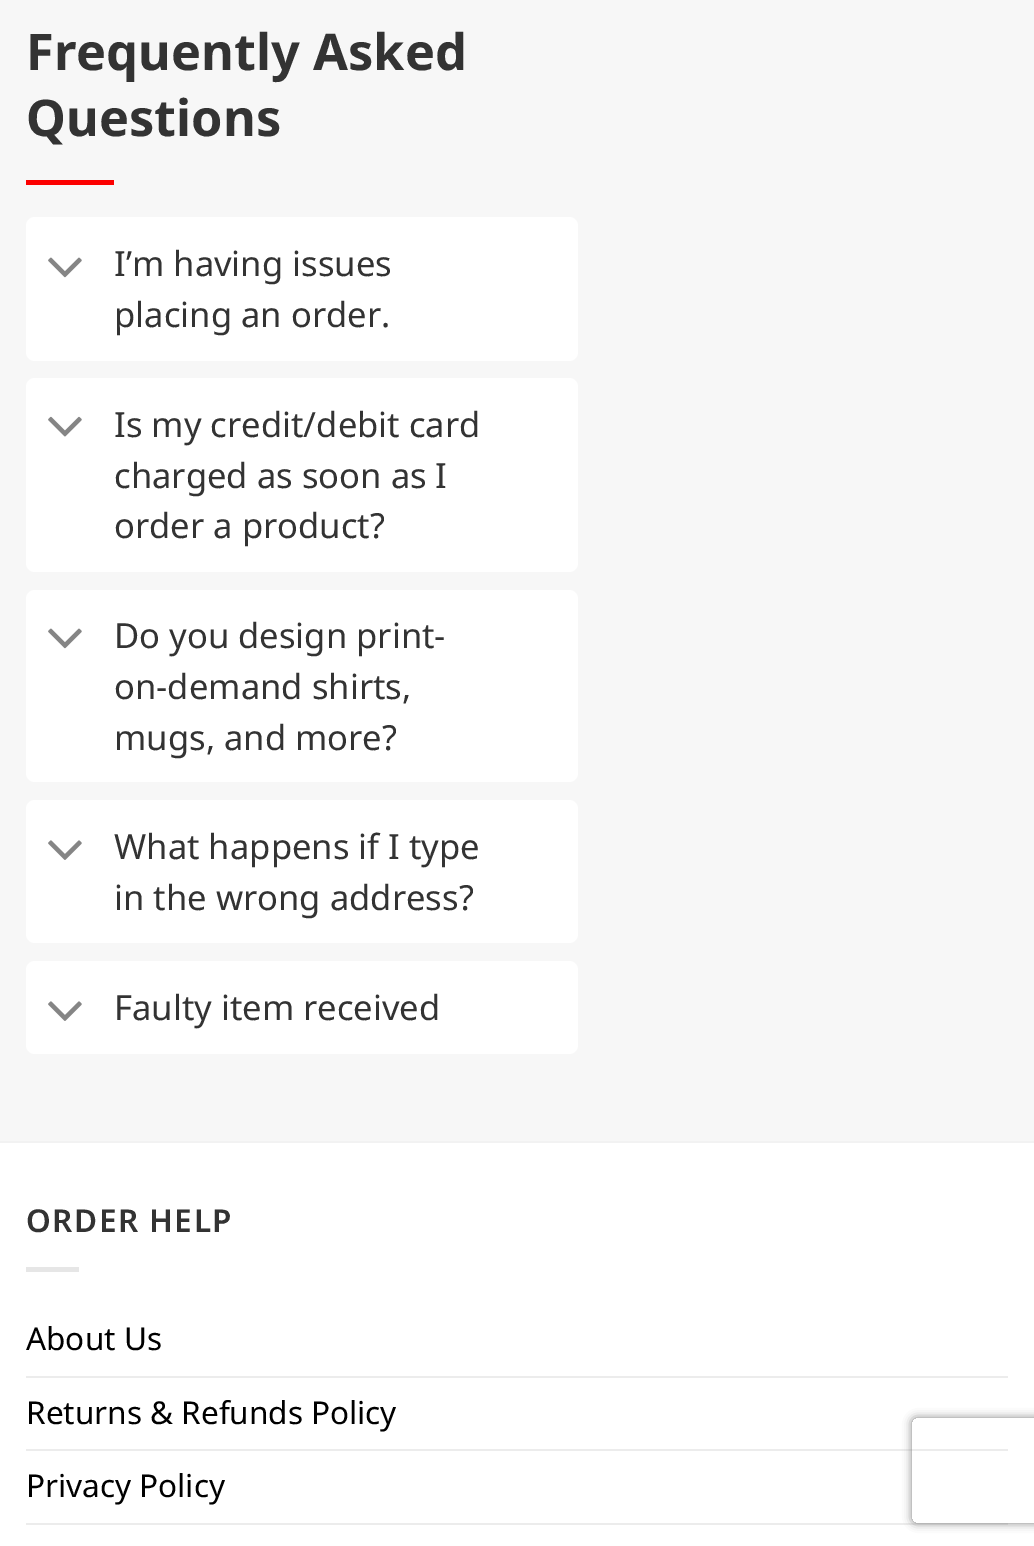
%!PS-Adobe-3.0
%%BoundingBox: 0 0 1034 1546
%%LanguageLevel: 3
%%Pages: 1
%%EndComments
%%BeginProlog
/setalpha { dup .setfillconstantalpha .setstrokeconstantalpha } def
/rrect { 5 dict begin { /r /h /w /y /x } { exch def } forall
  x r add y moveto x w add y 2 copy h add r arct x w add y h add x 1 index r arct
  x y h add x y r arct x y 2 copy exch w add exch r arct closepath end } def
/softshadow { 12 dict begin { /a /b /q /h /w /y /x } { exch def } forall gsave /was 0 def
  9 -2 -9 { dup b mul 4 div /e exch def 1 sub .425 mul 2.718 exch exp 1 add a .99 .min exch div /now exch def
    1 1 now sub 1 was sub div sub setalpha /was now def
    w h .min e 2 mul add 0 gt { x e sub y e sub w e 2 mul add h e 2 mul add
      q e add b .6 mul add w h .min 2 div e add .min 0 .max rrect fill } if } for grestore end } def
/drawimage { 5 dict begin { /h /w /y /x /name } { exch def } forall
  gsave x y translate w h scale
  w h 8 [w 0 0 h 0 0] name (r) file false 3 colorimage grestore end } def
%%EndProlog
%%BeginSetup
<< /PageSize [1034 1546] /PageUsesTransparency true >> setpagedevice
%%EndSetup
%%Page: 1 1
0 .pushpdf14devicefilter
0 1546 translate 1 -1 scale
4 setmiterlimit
1 setgray
0 0 1034 1546 rectfill
0.969 setgray
0 0 1034 1141 rectfill
0.988 0 0 setrgbcolor
26 180 88 5 rectfill
1 setgray
26 217 552 144 9 rrect fill
(images/1.raw) 48 257 34 21 drawimage
26 378 552 194 9 rrect fill
(images/2.raw) 48 416 34 21 drawimage
26 590 552 192 9 rrect fill
(images/1.raw) 48 628 34 21 drawimage
26 800 552 143 9 rrect fill
(images/3.raw) 48 840 34 20 drawimage
26 961 552 93 9 rrect fill
(images/3.raw) 48 1001 34 20 drawimage
0.949 setgray
0 1141 1034 2 rectfill
0.902 setgray
26 1267 53 5 rectfill
0.925 setgray
26 1376 982 2 rectfill
26 1449 982 2 rectfill
26 1523 982 2 rectfill
gsave
newpath 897 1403 moveto 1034 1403 lineto 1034 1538 lineto 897 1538 lineto closepath 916 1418 moveto 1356 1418 lineto 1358 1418 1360 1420 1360 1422 curveto 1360 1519 lineto 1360 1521 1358 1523 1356 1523 curveto 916 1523 lineto 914 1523 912 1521 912 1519 curveto 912 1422 lineto 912 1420 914 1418 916 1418 curveto closepath eoclip newpath
0.502 setgray
912 1418 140 105 4 4.5 1 softshadow
grestore
/NotoSans-Bold [50.5 0 0 -50.5 0 0] selectfont
0.2 setgray
26 70 moveto (Frequently Asked) show
26 136 moveto (Questions) show
/NotoSans-Regular [34.6 0 0 -34.6 0 0] selectfont
114 276 moveto (I’m having issues) show
114 327 moveto (placing an order.) show
114 437 moveto (Is my credit/debit card) show
114 488 moveto (charged as soon as I) show
114 538 moveto (order a product?) show
114 648 moveto (Do you design print-) show
114 699 moveto (on-demand shirts,) show
114 750 moveto (mugs, and more?) show
114 859 moveto (What happens if I type) show
114 910 moveto (in the wrong address?) show
114 1020 moveto (Faulty item received) show
/NotoSans-SemiBold [31.5 0 0 -31.5 0 0] selectfont
26 1232 moveto 1.5 0 (ORDER HELP) ashow
/NotoSans-Regular [31.5 0 0 -31.5 0 0] selectfont
0 setgray
26 1350 moveto (About Us) show
26 1424 moveto (Returns & Refunds Policy) show
26 1497 moveto (Privacy Policy) show
.poppdf14devicefilter showpage
%%EOF
